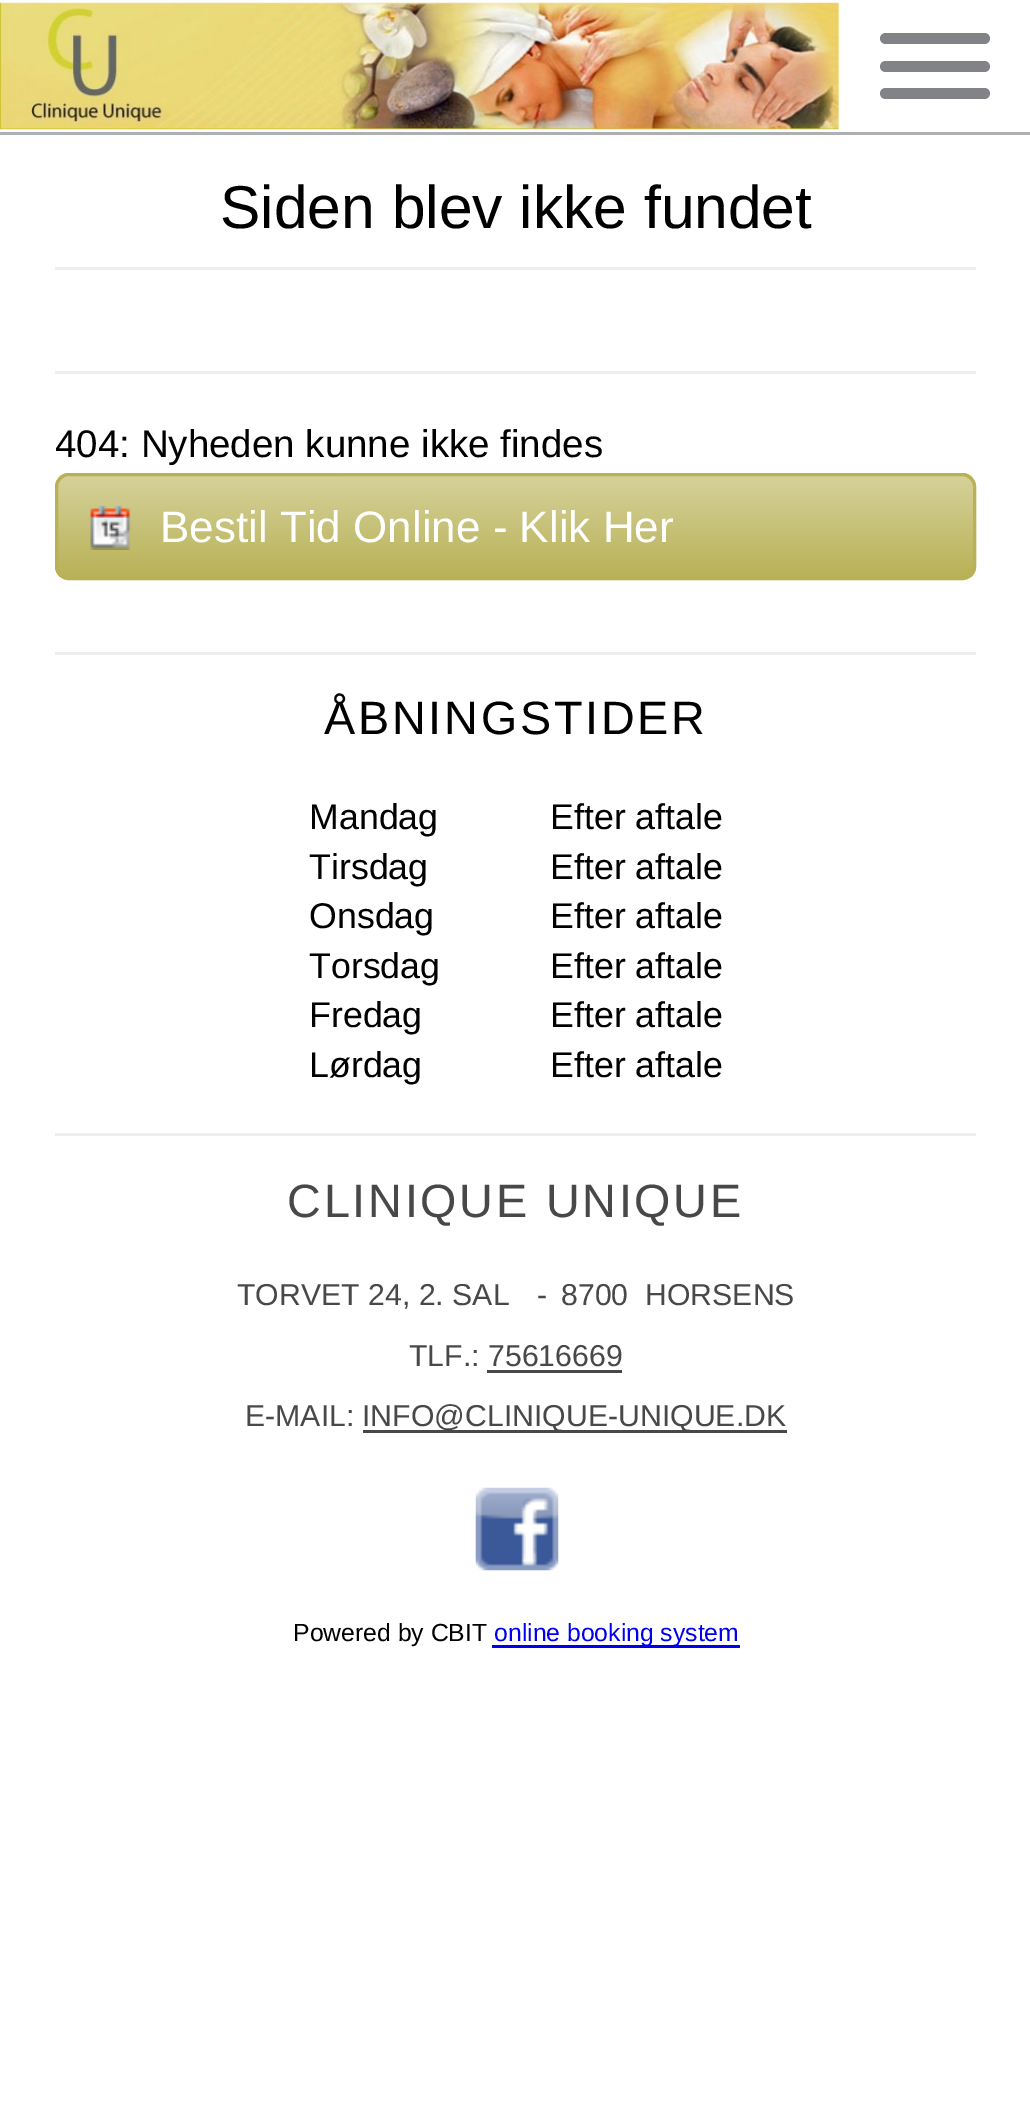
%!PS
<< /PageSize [1030 2116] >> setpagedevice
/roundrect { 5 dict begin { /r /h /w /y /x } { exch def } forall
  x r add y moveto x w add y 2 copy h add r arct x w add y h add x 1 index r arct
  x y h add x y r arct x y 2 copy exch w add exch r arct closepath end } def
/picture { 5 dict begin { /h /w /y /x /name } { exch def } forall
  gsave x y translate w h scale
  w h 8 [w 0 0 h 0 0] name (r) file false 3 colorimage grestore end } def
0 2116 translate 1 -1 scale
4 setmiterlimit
1 setgray
0 0 1030 2116 rectfill
0.682 0.686 0.698 setrgbcolor
0 132 1030 3 rectfill
(img1.rgb) 0 2 839 128 picture
0.51 0.514 0.529 setrgbcolor
880 88 110 11 5.5 roundrect fill
880 33 110 11 5.5 roundrect fill
880 61 110 11 5.5 roundrect fill
0.933 setgray
55 267 921 3 rectfill
/LiberationSans-Regular [60.5 0 0 -60.5 0 0] selectfont
0 setgray
220 228 moveto (Siden blev ikke fundet) show
0.933 setgray
55 371 921 3 rectfill
/LiberationSans-Regular [38.5 0 0 -38.5 0 0] selectfont
0 setgray
55 457 moveto (404: Nyheden kunne ikke findes) show
(img2.rgb) 55 473 922 108 picture
0.722 0.694 0.337 setrgbcolor
3 setlinewidth
56.5 474.5 918 104 12.5 roundrect stroke
/LiberationSans-Regular [44 0 0 -44 0 0] selectfont
1 setgray
160 542 moveto (Bestil Tid Online - Klik Her) show
0.933 setgray
55 652 921 3 rectfill
/LiberationSans-Regular [46.75 0 0 -46.75 0 0] selectfont
0 setgray
324 734 moveto 2.75 0 (ÅBNINGSTIDER) ashow
/LiberationSans-Regular [35.75 0 0 -35.75 0 0] selectfont
309 829 moveto (Mandag) show
550 829 moveto (Efter aftale) show
309 879 moveto (Tirsdag) show
550 879 moveto (Efter aftale) show
309 928 moveto (Onsdag) show
550 928 moveto (Efter aftale) show
309 978 moveto (Torsdag) show
550 978 moveto (Efter aftale) show
309 1027 moveto (Fredag) show
550 1027 moveto (Efter aftale) show
309 1077 moveto (Lørdag) show
550 1077 moveto (Efter aftale) show
0.933 setgray
55 1133 921 3 rectfill
/LiberationSans-Regular [46.75 0 0 -46.75 0 0] selectfont
0.282 setgray
287 1217 moveto 2.75 0 (CLINIQUE UNIQUE) ashow
/LiberationSans-Regular [30.25 0 0 -30.25 0 0] selectfont
237 1305 moveto (TORVET 24, 2. SAL) show
537 1305 moveto (-) show
561 1305 moveto (8700) show
645 1305 moveto (HORSENS) show
409 1366 moveto (TLF.: 75616669) show
487 1370 135 3 rectfill
245 1426 moveto (E-MAIL:) show
363 1430 424 3 rectfill
362 1426 moveto (INFO@CLINIQUE-UNIQUE.DK) show
(img3.rgb) 475 1487 84 84 picture
/LiberationSans-Regular [24.75 0 0 -24.75 0 0] selectfont
0 setgray
293 1641 moveto (Powered by CBIT) show
0 0 0.933 setrgbcolor
492 1645 248 3 rectfill
494 1641 moveto (online booking system) show
showpage
